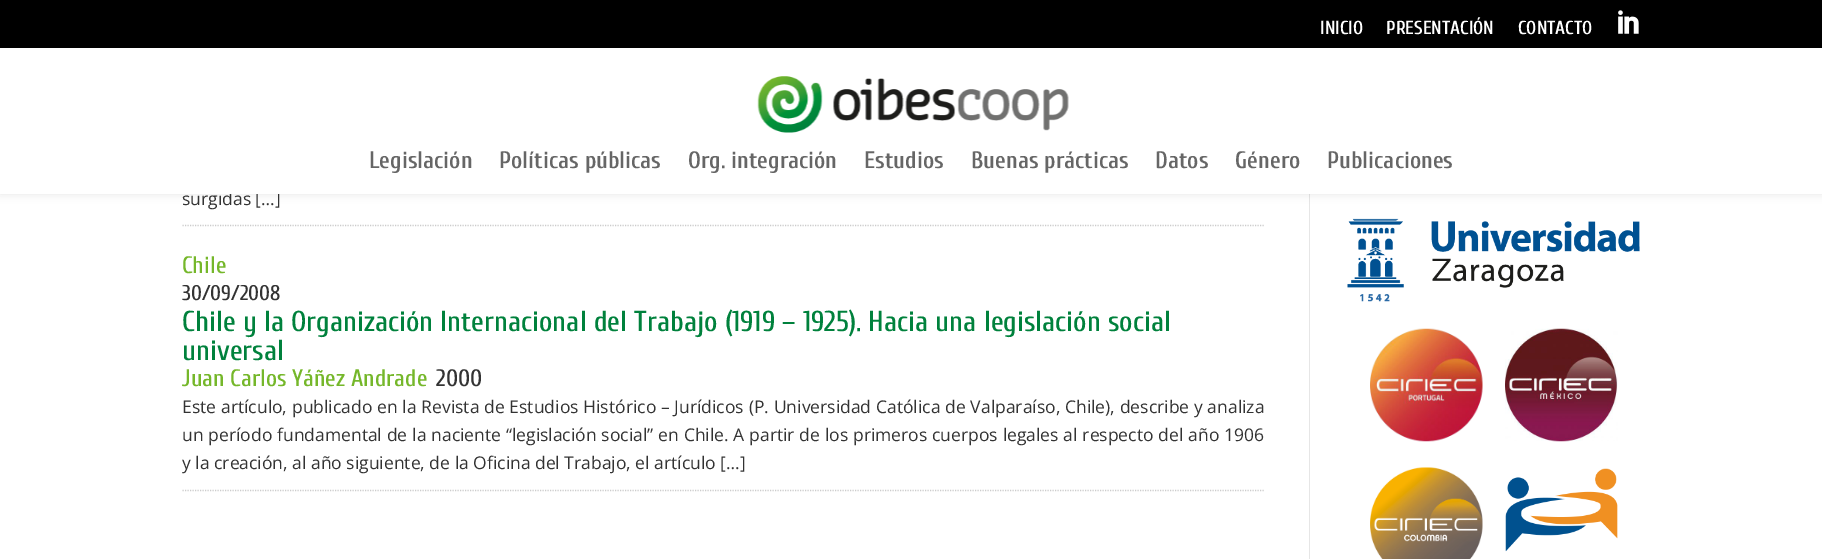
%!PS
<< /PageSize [1822 559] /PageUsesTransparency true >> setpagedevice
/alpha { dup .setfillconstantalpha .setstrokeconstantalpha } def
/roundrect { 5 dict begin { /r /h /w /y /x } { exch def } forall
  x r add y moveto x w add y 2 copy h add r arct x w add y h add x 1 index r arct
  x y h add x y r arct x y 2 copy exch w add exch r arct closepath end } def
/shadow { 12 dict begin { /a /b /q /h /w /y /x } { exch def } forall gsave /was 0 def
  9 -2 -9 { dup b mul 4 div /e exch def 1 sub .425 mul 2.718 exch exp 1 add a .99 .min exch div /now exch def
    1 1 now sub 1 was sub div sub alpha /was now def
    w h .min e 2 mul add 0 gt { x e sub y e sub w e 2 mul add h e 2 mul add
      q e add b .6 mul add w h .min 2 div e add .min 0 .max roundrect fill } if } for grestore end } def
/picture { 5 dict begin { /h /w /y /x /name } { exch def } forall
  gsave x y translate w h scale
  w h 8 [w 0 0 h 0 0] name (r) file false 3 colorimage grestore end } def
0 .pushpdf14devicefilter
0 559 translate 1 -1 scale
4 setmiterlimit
1 setgray
0 0 1822 559 rectfill
0.902 setgray
1309 194 1 365 rectfill
0 setgray
0 48 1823 146 0 4.5 0.1 shadow
0 0 1822 48 rectfill
/Cuprum-SemiBold [18.75 0 0 -18.75 0 0] selectfont
1 setgray
1320 34 moveto (INICIO) show
1386 34 moveto (PRESENTACIÓN) show
1518 34 moveto (CONTACTO) show
(img1.rgb) 1618 10 21 24 picture
/OpenSans-Regular [17.5 0 0 -17.5 0 0] selectfont
0.2 setgray
182 205 moveto (surgidas […]) show
1 setgray
0 48 1822 146 rectfill
(img2.rgb) 757 76 312 57 picture
/Cuprum-SemiBold [23.75 0 0 -23.75 0 0] selectfont
0.4 setgray
369 168 moveto (Legislación) show
499 168 moveto (Políticas públicas) show
688 168 moveto (Org. integración) show
864 168 moveto (Estudios) show
971 168 moveto (Buenas prácticas) show
1155 168 moveto (Datos) show
1235 168 moveto (Género) show
1327 168 moveto (Publicaciones) show
0.8 setgray
1.2 setlinewidth
[1.25 1.25] 0 setdash
newpath 182.5 225.5 moveto 1265 225.5 lineto stroke
newpath 182.5 490.5 moveto 1265 490.5 lineto stroke
/Cuprum-Medium [23.75 0 0 -23.75 0 0] selectfont
0.459 0.718 0.165 setrgbcolor
182 273 moveto (Chile) show
/Cuprum-Medium [21.25 0 0 -21.25 0 0] selectfont
0.2 setgray
182 300 moveto (30/09/2008) show
/Cuprum-Medium [28.75 0 0 -28.75 0 0] selectfont
0 0.506 0.235 setrgbcolor
182 331 moveto (Chile y la Organización Internacional del Trabajo \(1919 – 1925\). Hacia una legislación social) show
182 360 moveto (universal) show
/Cuprum-Medium [23.75 0 0 -23.75 0 0] selectfont
0.459 0.718 0.165 setrgbcolor
182 386 moveto (Juan Carlos Yáñez Andrade) show
0.2 setgray
436 386 moveto (2000) show
/OpenSans-Regular [17.5 0 0 -17.5 0 0] selectfont
182 413 moveto 0.25 0 32 (Este artículo, publicado en la Revista de Estudios Histórico – Jurídicos \(P. Universidad Católica de Valparaíso, Chile\), describe y analiza) widthshow
182 441 moveto 0.3 0 32 (un período fundamental de la naciente “legislación social” en Chile. A partir de los primeros cuerpos legales al respecto del año 1906) widthshow
182 469 moveto (y la creación, al año siguiente, de la Oficina del Trabajo, el artículo […]) show
(img3.rgb) 1347 218 293 84 picture
(img4.rgb) 1370 328 113 114 picture
(img5.rgb) 1505 328 113 114 picture
(img6.rgb) 1370 467 113 92 picture
(img7.rgb) 1505 468 113 84 picture
.poppdf14devicefilter showpage
